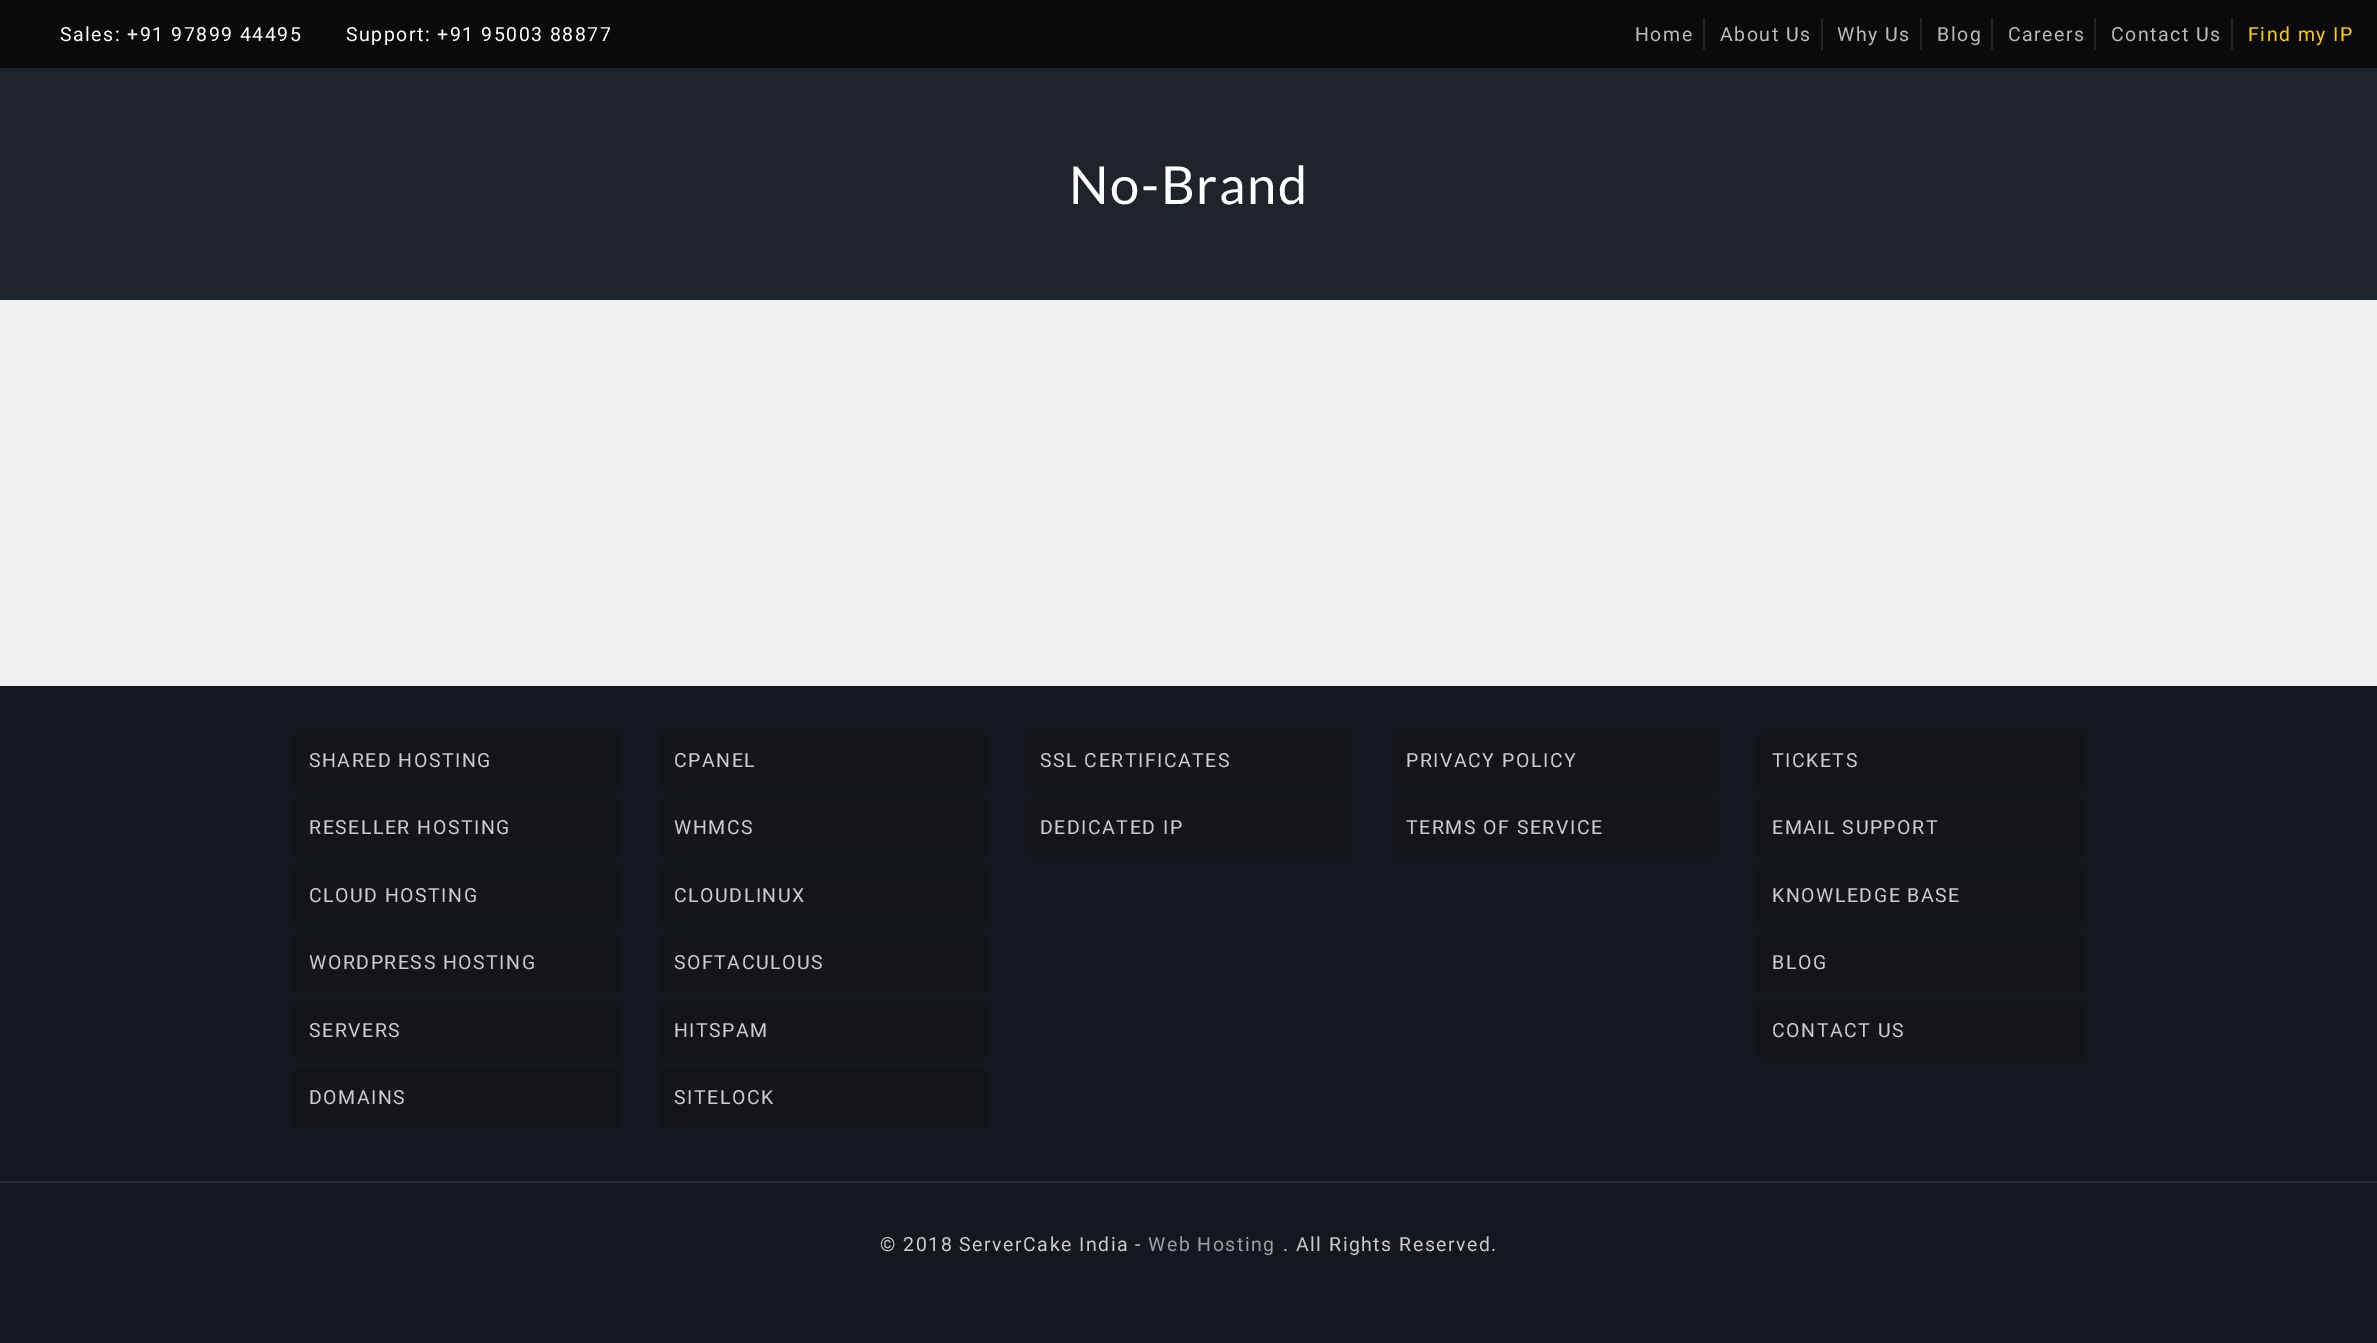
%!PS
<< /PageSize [2377 1343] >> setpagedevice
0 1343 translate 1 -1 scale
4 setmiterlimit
0.082 0.09 0.118 setrgbcolor
0 0 2377 1343 rectfill
0.122 0.137 0.165 setrgbcolor
0 68 2377 232 rectfill
0.039 setgray
0 0 2377 68 rectfill
/Roboto-Regular [19.5 0 0 -19.5 0 0] selectfont
1 setgray
60 41 moveto 1.5 0 (Sales: +91 97899 44495) ashow
346 41 moveto 1.5 0 (Support: +91 95003 88877) ashow
0.137 setgray
1703 18 2 32 rectfill
0.733 setgray
1635 41 moveto 1.5 0 (Home) ashow
0.137 setgray
1821 18 2 32 rectfill
0.733 setgray
1720 41 moveto 1.5 0 (About Us) ashow
0.137 setgray
1920 18 2 32 rectfill
0.733 setgray
1837 41 moveto 1.5 0 (Why Us) ashow
0.137 setgray
1991 18 2 32 rectfill
0.733 setgray
1937 41 moveto 1.5 0 (Blog) ashow
0.137 setgray
2094 18 2 32 rectfill
0.733 setgray
2008 41 moveto 1.5 0 (Careers) ashow
0.137 setgray
2231 18 2 32 rectfill
0.733 setgray
2111 41 moveto 1.5 0 (Contact Us) ashow
1 0.8 0 setrgbcolor
2248 41 moveto 1.5 0 (Find my IP) ashow
/Lato-Regular [52.5 0 0 -52.5 0 0] selectfont
1 setgray
1069 204 moveto 1.5 0 (No-Brand) ashow
0.941 0.941 0.949 setrgbcolor
0 300 2377 386 rectfill
0.075 0.082 0.106 setrgbcolor
293 731 328 60 rectfill
/Roboto-Regular [19.5 0 0 -19.5 0 0] selectfont
0.8 setgray
309 767 moveto 1.5 0 (SHARED HOSTING) ashow
0.075 0.082 0.106 setrgbcolor
293 798 328 60 rectfill
0.8 setgray
309 834 moveto 1.5 0 (RESELLER HOSTING) ashow
0.075 0.082 0.106 setrgbcolor
293 866 328 60 rectfill
0.8 setgray
309 902 moveto 1.5 0 (CLOUD HOSTING) ashow
0.075 0.082 0.106 setrgbcolor
293 933 328 60 rectfill
0.8 setgray
309 969 moveto 1.5 0 (WORDPRESS HOSTING) ashow
0.075 0.082 0.106 setrgbcolor
293 1001 328 60 rectfill
0.8 setgray
309 1037 moveto 1.5 0 (SERVERS) ashow
0.075 0.082 0.106 setrgbcolor
293 1068 328 60 rectfill
0.8 setgray
309 1104 moveto 1.5 0 (DOMAINS) ashow
0.075 0.082 0.106 setrgbcolor
659 731 328 60 rectfill
0.8 setgray
674 767 moveto 1.5 0 (CPANEL) ashow
0.075 0.082 0.106 setrgbcolor
659 798 328 60 rectfill
0.8 setgray
674 834 moveto 1.5 0 (WHMCS) ashow
0.075 0.082 0.106 setrgbcolor
659 866 328 60 rectfill
0.8 setgray
674 902 moveto 1.5 0 (CLOUDLINUX) ashow
0.075 0.082 0.106 setrgbcolor
659 933 328 60 rectfill
0.8 setgray
674 969 moveto 1.5 0 (SOFTACULOUS) ashow
0.075 0.082 0.106 setrgbcolor
659 1001 328 60 rectfill
0.8 setgray
674 1037 moveto 1.5 0 (HITSPAM) ashow
0.075 0.082 0.106 setrgbcolor
659 1068 328 60 rectfill
0.8 setgray
674 1104 moveto 1.5 0 (SITELOCK) ashow
0.075 0.082 0.106 setrgbcolor
1025 731 328 60 rectfill
0.8 setgray
1040 767 moveto 1.5 0 (SSL CERTIFICATES) ashow
0.075 0.082 0.106 setrgbcolor
1025 798 328 60 rectfill
0.8 setgray
1040 834 moveto 1.5 0 (DEDICATED IP) ashow
0.075 0.082 0.106 setrgbcolor
1391 731 328 60 rectfill
0.8 setgray
1406 767 moveto 1.5 0 (PRIVACY POLICY) ashow
0.075 0.082 0.106 setrgbcolor
1391 798 328 60 rectfill
0.8 setgray
1406 834 moveto 1.5 0 (TERMS OF SERVICE) ashow
0.075 0.082 0.106 setrgbcolor
1757 731 328 60 rectfill
0.8 setgray
1772 767 moveto 1.5 0 (TICKETS) ashow
0.075 0.082 0.106 setrgbcolor
1757 798 328 60 rectfill
0.8 setgray
1772 834 moveto 1.5 0 (EMAIL SUPPORT) ashow
0.075 0.082 0.106 setrgbcolor
1757 866 328 60 rectfill
0.8 setgray
1772 902 moveto 1.5 0 (KNOWLEDGE BASE) ashow
0.075 0.082 0.106 setrgbcolor
1757 933 328 60 rectfill
0.8 setgray
1772 969 moveto 1.5 0 (BLOG) ashow
0.075 0.082 0.106 setrgbcolor
1757 1001 328 60 rectfill
0.8 setgray
1772 1037 moveto 1.5 0 (CONTACT US) ashow
0.173 0.18 0.208 setrgbcolor
0 1181 2377 2 rectfill
0.8 setgray
880 1251 moveto 1.5 0 (© 2018 ServerCake India -) ashow
0.616 0.62 0.643 setrgbcolor
1148 1251 moveto 1.5 0 (Web Hosting) ashow
0.8 setgray
1283 1251 moveto 1.5 0 (. All Rights Reserved.) ashow
showpage
